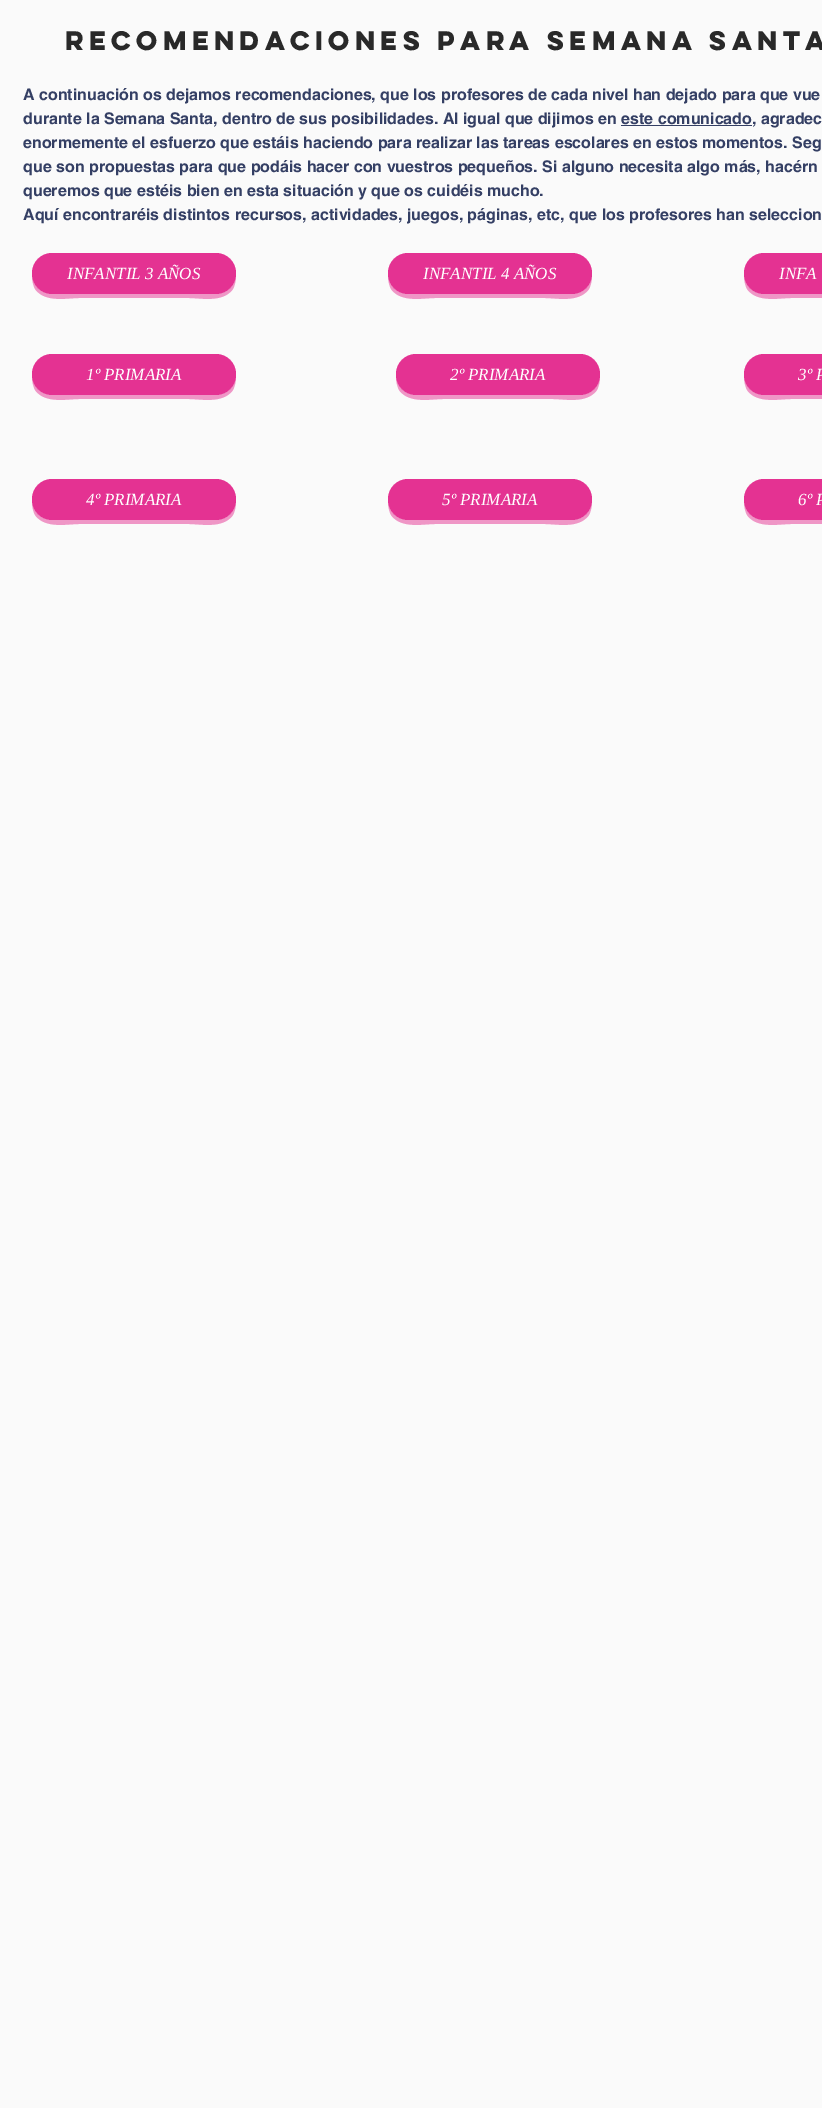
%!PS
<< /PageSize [822 2108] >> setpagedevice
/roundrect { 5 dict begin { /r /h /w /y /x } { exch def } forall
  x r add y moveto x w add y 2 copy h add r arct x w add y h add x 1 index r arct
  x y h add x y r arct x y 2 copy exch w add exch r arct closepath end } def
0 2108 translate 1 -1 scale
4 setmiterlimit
0.98 setgray
0 0 822 2108 rectfill
/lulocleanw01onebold-Bold [24 0 0 -24 0 0] selectfont
0.161 setgray
65 50 moveto (RECOMENDACIONES PARA Semana Santa) show
/helvetica-Bold [16 0 0 -16 0 0] selectfont
0.204 0.247 0.392 setrgbcolor
23 100 moveto (A continuación os dejamos recomendaciones, que los profesores de cada nivel han dejado para que vue) show
23 124 moveto (durante la Semana Santa, dentro de sus posibilidades. Al igual que dijimos en este comunicado, agradec) show
621 125 131 1 rectfill
23 148 moveto (enormemente el esfuerzo que estáis haciendo para realizar las tareas escolares en estos momentos. Seg) show
23 172 moveto (que son propuestas para que podáis hacer con vuestros pequeños. Si alguno necesita algo más, hacérn) show
23 196 moveto (queremos que estéis bien en esta situación y que os cuidéis mucho.) show
23 220 moveto (Aquí encontraréis distintos recursos, actividades, juegos, páginas, etc, que los profesores han seleccion) show
0.937 0.588 0.776 setrgbcolor
newpath 32 276 moveto 32 280 33 285 35 289 curveto 45 303 67 298 79 298 curveto 189 298 lineto 201 298 223 303 233 289 curveto 235 285 236 280 236 276 curveto 235 286 227 294 216 294 curveto 52 294 lineto 41 294 33 286 32 276 curveto closepath fill
0.894 0.196 0.573 setrgbcolor
32 253 204 41 20 roundrect fill
/LiberationSerif-Italic [17 0 0 -17 0 0] selectfont
1 setgray
67 279 moveto (INFANTIL 3 AÑOS) show
0.937 0.588 0.776 setrgbcolor
newpath 388 276 moveto 388 280 389 285 391 289 curveto 401 303 423 298 435 298 curveto 545 298 lineto 557 298 579 303 589 289 curveto 591 285 592 280 592 276 curveto 591 286 583 294 572 294 curveto 408 294 lineto 397 294 389 286 388 276 curveto closepath fill
0.894 0.196 0.573 setrgbcolor
388 253 204 41 20 roundrect fill
1 setgray
423 279 moveto (INFANTIL 4 AÑOS) show
0.937 0.588 0.776 setrgbcolor
newpath 744 276 moveto 744 280 745 285 747 289 curveto 757 303 779 298 791 298 curveto 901 298 lineto 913 298 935 303 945 289 curveto 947 285 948 280 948 276 curveto 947 286 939 294 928 294 curveto 764 294 lineto 753 294 745 286 744 276 curveto closepath fill
0.894 0.196 0.573 setrgbcolor
744 253 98 41 20 roundrect fill
1 setgray
779 279 moveto (INFA) show
0.937 0.588 0.776 setrgbcolor
newpath 32 376 moveto 32 381 33 386 35 390 curveto 45 404 67 399 79 399 curveto 189 399 lineto 201 399 223 404 233 390 curveto 235 386 236 381 236 376 curveto 235 387 227 395 216 395 curveto 52 395 lineto 41 395 33 387 32 376 curveto closepath fill
0.894 0.196 0.573 setrgbcolor
32 354 204 41 20 roundrect fill
1 setgray
86 380 moveto (1º PRIMARIA) show
0.937 0.588 0.776 setrgbcolor
newpath 396 376 moveto 396 381 397 386 399 390 curveto 409 404 431 399 443 399 curveto 553 399 lineto 565 399 587 404 597 390 curveto 599 386 600 381 600 376 curveto 599 387 591 395 580 395 curveto 416 395 lineto 405 395 397 387 396 376 curveto closepath fill
0.894 0.196 0.573 setrgbcolor
396 354 204 41 20 roundrect fill
1 setgray
450 380 moveto (2º PRIMARIA) show
0.937 0.588 0.776 setrgbcolor
newpath 744 376 moveto 744 381 745 386 747 390 curveto 757 404 779 399 791 399 curveto 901 399 lineto 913 399 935 404 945 390 curveto 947 386 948 381 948 376 curveto 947 387 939 395 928 395 curveto 764 395 lineto 753 395 745 387 744 376 curveto closepath fill
0.894 0.196 0.573 setrgbcolor
744 354 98 41 20 roundrect fill
1 setgray
798 380 moveto (3º P) show
0.937 0.588 0.776 setrgbcolor
newpath 32 502 moveto 32 506 33 511 35 515 curveto 45 529 67 524 79 524 curveto 189 524 lineto 201 524 223 529 233 515 curveto 235 511 236 506 236 502 curveto 235 512 227 520 216 520 curveto 52 520 lineto 41 520 33 512 32 502 curveto closepath fill
0.894 0.196 0.573 setrgbcolor
32 479 204 41 20 roundrect fill
1 setgray
86 505 moveto (4º PRIMARIA) show
0.937 0.588 0.776 setrgbcolor
newpath 388 502 moveto 388 506 389 511 391 515 curveto 401 529 423 524 435 524 curveto 545 524 lineto 557 524 579 529 589 515 curveto 591 511 592 506 592 502 curveto 591 512 583 520 572 520 curveto 408 520 lineto 397 520 389 512 388 502 curveto closepath fill
0.894 0.196 0.573 setrgbcolor
388 479 204 41 20 roundrect fill
1 setgray
442 505 moveto (5º PRIMARIA) show
0.937 0.588 0.776 setrgbcolor
newpath 744 502 moveto 744 506 745 511 747 515 curveto 757 529 779 524 791 524 curveto 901 524 lineto 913 524 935 529 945 515 curveto 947 511 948 506 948 502 curveto 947 512 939 520 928 520 curveto 764 520 lineto 753 520 745 512 744 502 curveto closepath fill
0.894 0.196 0.573 setrgbcolor
744 479 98 41 20 roundrect fill
1 setgray
798 505 moveto (6º P) show
showpage
